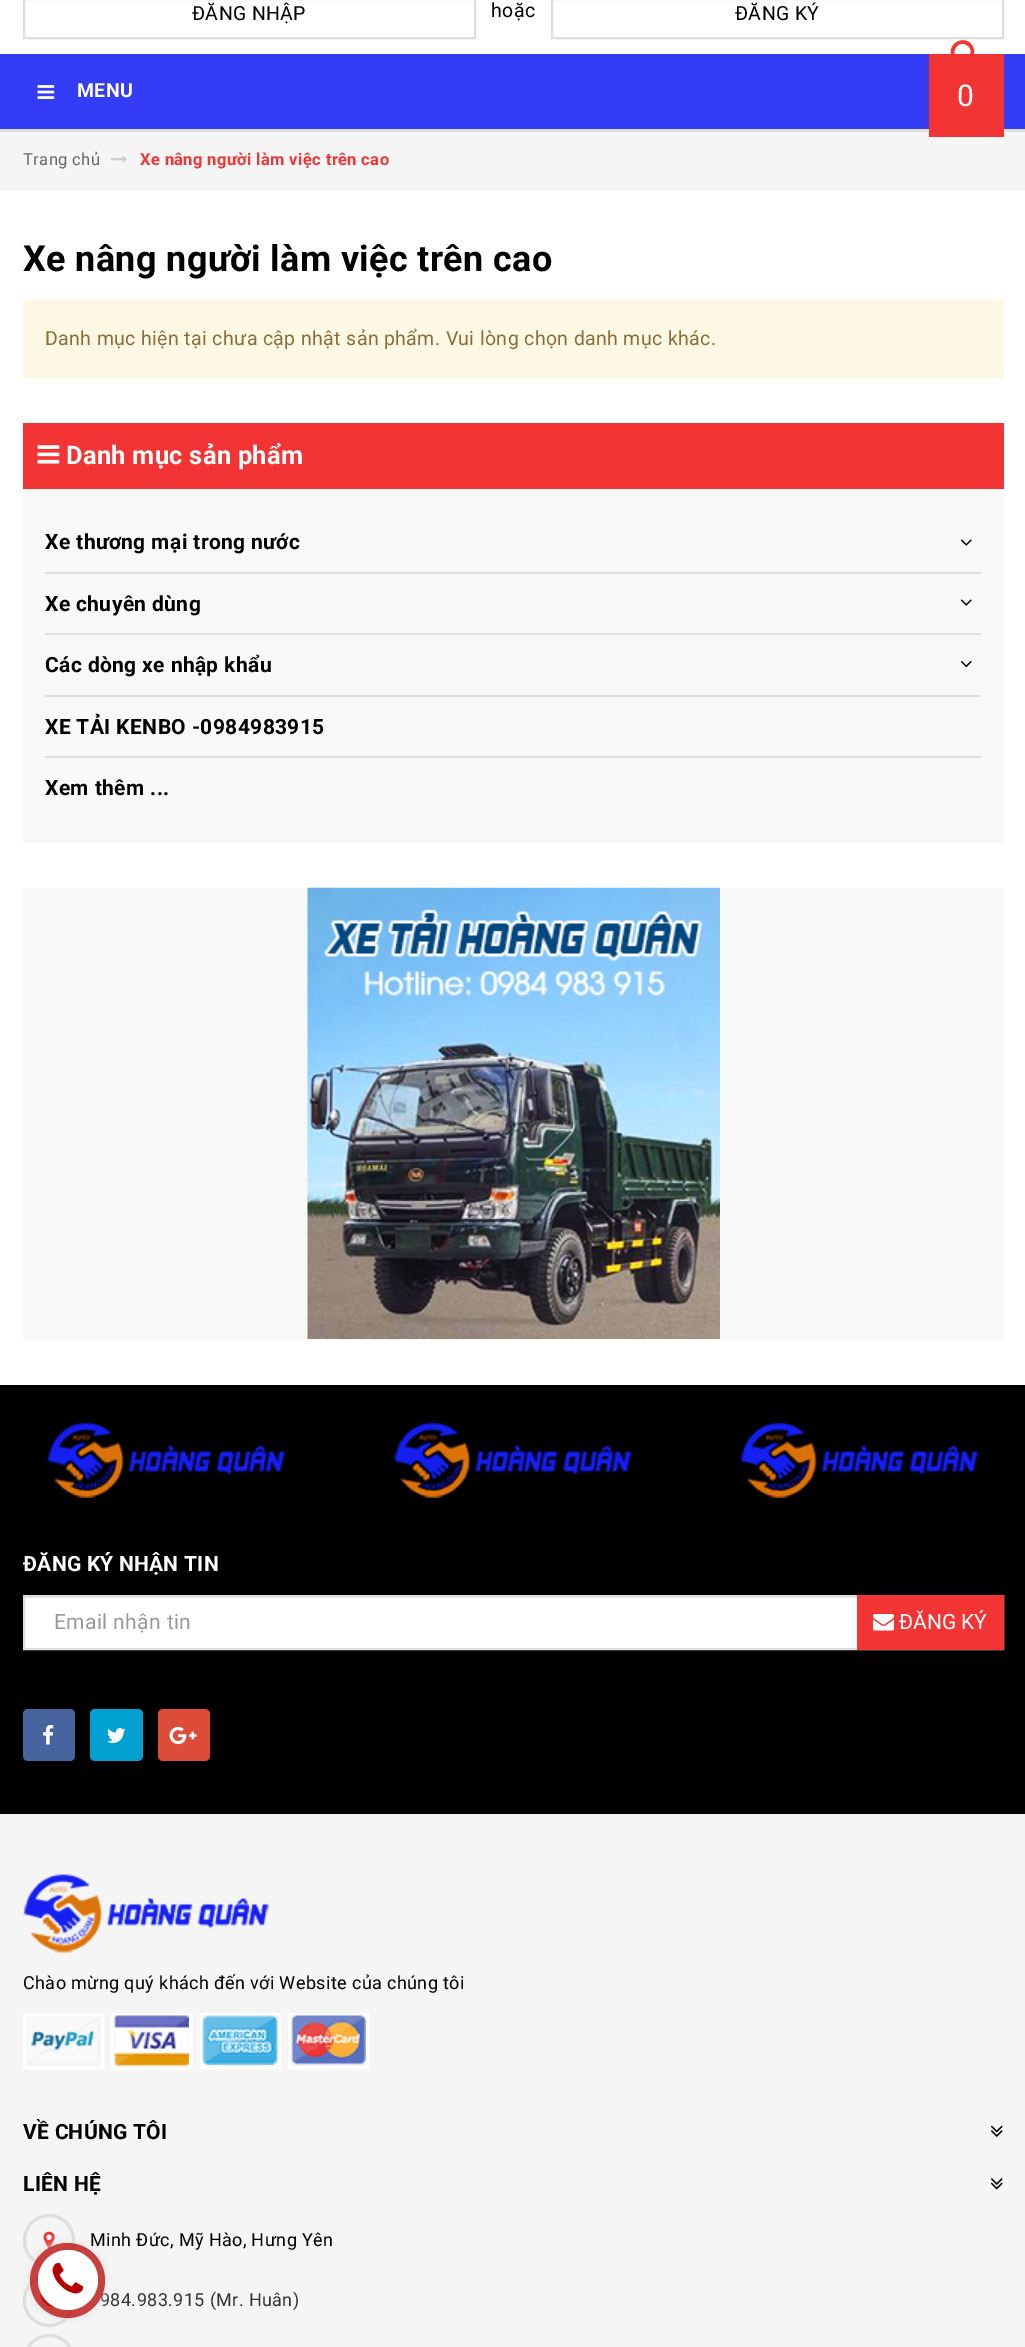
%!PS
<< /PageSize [1025 2347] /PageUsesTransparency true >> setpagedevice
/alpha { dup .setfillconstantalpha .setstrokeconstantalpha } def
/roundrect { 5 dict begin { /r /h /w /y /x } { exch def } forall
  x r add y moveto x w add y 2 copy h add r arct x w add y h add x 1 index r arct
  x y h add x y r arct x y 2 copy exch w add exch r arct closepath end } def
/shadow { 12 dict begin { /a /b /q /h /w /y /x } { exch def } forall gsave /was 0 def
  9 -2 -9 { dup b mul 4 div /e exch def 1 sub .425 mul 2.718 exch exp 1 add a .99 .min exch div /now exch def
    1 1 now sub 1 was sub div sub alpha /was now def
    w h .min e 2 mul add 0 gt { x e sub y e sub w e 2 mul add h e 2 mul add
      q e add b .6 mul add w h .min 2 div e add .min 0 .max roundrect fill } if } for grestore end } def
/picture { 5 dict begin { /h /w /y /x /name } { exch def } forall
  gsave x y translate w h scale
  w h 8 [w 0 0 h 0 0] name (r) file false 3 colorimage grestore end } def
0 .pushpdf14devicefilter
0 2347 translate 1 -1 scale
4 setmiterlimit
1 setgray
0 0 1025 2347 rectfill
0.871 setgray
2 setlinewidth
24 -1 451 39 rectstroke
/Roboto-Regular [19.5 0 0 -19.5 0 0] selectfont
0 setgray
192 20 moveto 0.38 0 (ĐĂNG NHẬP) ashow
491 17 moveto 0.38 0 (hoặc) ashow
0.871 setgray
552 -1 451 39 rectstroke
0 setgray
735 20 moveto 0.38 0 (ĐĂNG KÝ) ashow
0.871 setgray
0 129 1025 3 rectfill
0.204 0.239 0.961 setrgbcolor
0 54 1025 75 rectfill
(img1.rgb) 37 85 18 14 picture
/Roboto-Bold [19.5 0 0 -19.5 0 0] selectfont
1 setgray
77 97 moveto 0.38 0 (MENU) ashow
0.961 setgray
0 132 1025 59 rectfill
0.949 0.208 0.204 setrgbcolor
929 54 75 83 rectfill
newpath 966.5 45 moveto 957.5 39.5 949 53.5 958.5 59 curveto 967.5 64.5 976 50 966.5 45 curveto closepath 972.5 46 moveto 980 59 960 71 952.5 57.5 curveto 945 44.5 965 33 972.5 46 curveto closepath fill
/Roboto-Regular [30 0 0 -30 0 0] selectfont
1 setgray
957 106 moveto 0.38 0 (0) ashow
/Roboto-Regular [16.5 0 0 -16.5 0 0] selectfont
0.4 setgray
23 165 moveto 0.38 0 (Trang chủ) ashow
(img2.rgb) 111 155 16 8 picture
/Roboto-Bold [16.5 0 0 -16.5 0 0] selectfont
0.949 0.208 0.204 setrgbcolor
140 165 moveto 0.38 0 (Xe nâng người làm việc trên cao) ashow
/Roboto-Bold [36 0 0 -36 0 0] selectfont
0 setgray
23 271 moveto 0.35 0 (Xe nâng người làm việc trên cao) ashow
0.988 0.973 0.89 setrgbcolor
23 300 981 78 rectfill
/Roboto-Regular [19.5 0 0 -19.5 0 0] selectfont
0.541 0.427 0.231 setrgbcolor
45 345 moveto 0.38 0 (Danh mục hiện tại chưa cập nhật sản phẩm. Vui lòng chọn danh mục khác.) ashow
0.949 0.208 0.204 setrgbcolor
23 423 981 66 rectfill
(img3.rgb) 37 445 23 19 picture
/Roboto-Bold [25.5 0 0 -25.5 0 0] selectfont
1 setgray
66 464 moveto 0.25 0 (Danh mục sản phẩm) ashow
0.973 setgray
23 489 981 354 rectfill
/Roboto-Bold [21 0 0 -21 0 0] selectfont
0 setgray
45 549 moveto 0.38 0 (Xe thương mại trong nước) ashow
(img4.rgb) 960 539 12 7 picture
0.871 setgray
45 572 936 2 rectfill
0 setgray
45 611 moveto 0.38 0 (Xe chuyên dùng) ashow
(img4.rgb) 960 599 12 7 picture
0.871 setgray
45 633 936 2 rectfill
0 setgray
45 672 moveto 0.38 0 (Các dòng xe nhập khẩu) ashow
(img5.rgb) 960 660 12 8 picture
0.871 setgray
45 695 936 2 rectfill
0 setgray
45 734 moveto 0.38 0 (XE TẢI KENBO -0984983915) ashow
0.871 setgray
45 756 936 2 rectfill
0 setgray
45 795 moveto 0.38 0 (Xem thêm ...) ashow
0.973 setgray
23 888 981 452 rectfill
(img6.rgb) 307 887 413 452 picture
0.961 setgray
0 1814 1025 533 rectfill
0 setgray
0 1385 1025 429 rectfill
(img7.rgb) 47 1422 239 76 picture
(img8.rgb) 394 1422 238 76 picture
(img7.rgb) 740 1422 239 76 picture
1 setgray
23 1571 moveto 0.25 0 (ĐĂNG KÝ NHẬN TIN) ashow
25 1598 832 50 rectfill
0.925 setgray
24 1597 833 1 rectfill
0.871 setgray
24 1596 979 53 rectstroke
/Roboto-Regular [21 0 0 -21 0 0] selectfont
0.6 setgray
54 1629 moveto 0.38 0 (Email nhận tin) ashow
0.949 0.208 0.204 setrgbcolor
857 1595 147 55 rectfill
(img9.rgb) 873 1614 21 17 picture
1 setgray
899 1629 moveto (ĐĂNG KÝ) show
0.278 0.392 0.62 setrgbcolor
23 1709 52 52 5 roundrect fill
(img10.rgb) 43 1725 11 20 picture
0 0.627 0.82 setrgbcolor
90 1709 53 52 5 roundrect fill
(img11.rgb) 107 1728 19 15 picture
0.867 0.294 0.224 setrgbcolor
158 1709 52 52 5 roundrect fill
(img12.rgb) 169 1726 28 19 picture
(img13.rgb) 23 1874 246 79 picture
/Roboto-Regular [18 0 0 -18 0 0] selectfont
0 setgray
23 1989 moveto 0.38 0 (Chào mừng quý khách đến với Website của chúng tôi) ashow
1 setgray
3 setlinewidth
24.5 2014.5 78 53 rectstroke
(img14.rgb) 26 2016 71 46 picture
112.5 2014.5 78 54 rectstroke
(img15.rgb) 114 2015 75 52 picture
201.5 2014.5 78 53 rectstroke
(img16.rgb) 202 2015 76 50 picture
289.5 2014.5 78 53 rectstroke
(img17.rgb) 291 2015 75 50 picture
/Roboto-Bold [21 0 0 -21 0 0] selectfont
0 setgray
23 2139 moveto 0.25 0 (VỀ CHÚNG TÔI) ashow
(img18.rgb) 990 2125 13 12 picture
23 2191 moveto 0.25 0 (LIÊN HỆ) ashow
(img19.rgb) 990 2178 13 12 picture
0.871 setgray
24.5 2215.5 49 50 24.5 roundrect stroke
(img20.rgb) 43 2231 12 18 picture
/Roboto-Regular [18 0 0 -18 0 0] selectfont
0 setgray
90 2246 moveto 0.38 0 (Minh Đức, Mỹ Hào, Hưng Yên) ashow
0.871 setgray
24.5 2275.5 49 50 24.5 roundrect stroke
(img21.rgb) 40 2293 15 14 picture
0.2 setgray
100 2306 moveto 0.38 0 (984.983.915 \(Mr. Huân\)) ashow
0.871 setgray
24.5 2335.5 49 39 24.5 roundrect stroke
gsave
newpath 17 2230 moveto 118 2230 lineto 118 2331 lineto 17 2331 lineto closepath 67.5 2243 moveto 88 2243 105 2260 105 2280.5 curveto 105 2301 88 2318 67.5 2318 curveto 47 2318 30 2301 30 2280.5 curveto 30 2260 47 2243 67.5 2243 curveto closepath eoclip newpath
0.867 setgray
30 2243 75 75 37.5 4 1 shadow
grestore
0.74 alpha
0.718 0.004 0 setrgbcolor
newpath 67.5 2280.5 37.5 0 360 arc closepath fill
1 alpha
1 setgray
newpath 68 2280 30 0 360 arc closepath fill
(img22.rgb) 52 2262 32 32 picture
.poppdf14devicefilter showpage
